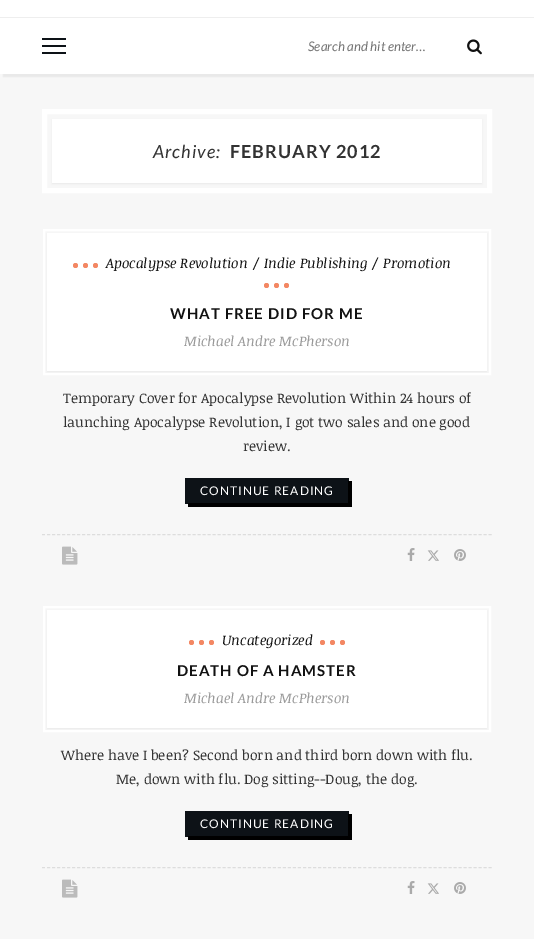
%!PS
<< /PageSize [534 939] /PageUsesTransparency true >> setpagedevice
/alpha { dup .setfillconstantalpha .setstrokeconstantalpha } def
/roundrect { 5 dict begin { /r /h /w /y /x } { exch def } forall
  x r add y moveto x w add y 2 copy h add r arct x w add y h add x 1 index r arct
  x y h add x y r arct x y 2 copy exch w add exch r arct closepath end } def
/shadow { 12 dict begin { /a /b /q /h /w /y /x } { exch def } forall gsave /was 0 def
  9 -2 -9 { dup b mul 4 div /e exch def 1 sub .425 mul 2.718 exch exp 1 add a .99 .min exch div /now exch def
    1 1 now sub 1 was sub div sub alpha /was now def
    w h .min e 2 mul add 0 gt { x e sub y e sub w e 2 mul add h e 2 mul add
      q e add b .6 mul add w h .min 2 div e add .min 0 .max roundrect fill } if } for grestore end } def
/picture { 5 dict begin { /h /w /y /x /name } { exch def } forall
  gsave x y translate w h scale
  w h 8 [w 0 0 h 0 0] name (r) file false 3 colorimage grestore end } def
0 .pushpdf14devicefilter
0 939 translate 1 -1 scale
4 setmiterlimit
0.969 setgray
0 0 534 939 rectfill
1 setgray
0 0 534 17 rectfill
0.933 setgray
0 17 534 1 rectfill
0 setgray
3 21 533 56 0 0.5 0.05 shadow
1 setgray
0 18 534 56 rectfill
0.051 0.071 0.09 setrgbcolor
42 45 24 2 rectfill
42 38 24 2 rectfill
42 52 24 2 rectfill
/Lato-Italic [13.25 0 0 -13.25 0 0] selectfont
0.459 setgray
308 51 moveto (Search and hit enter…) show
(img1.rgb) 467 39 15 16 picture
0 setgray
52 120 430 64 0 1 0.05 shadow
1 setgray
52 119 430 64 rectfill
5 setlinewidth
44.5 111.5 445 79 rectstroke
/Lato-Italic [18 0 0 -18 0 0] selectfont
0.2 setgray
153 158 moveto 1 0 (Archive:) ashow
/Lato-Bold [18 0 0 -18 0 0] selectfont
230 158 moveto 1 0 (FEBRUARY 2012) ashow
0 setgray
47 234 440 138 0 1 0.05 shadow
1 setgray
47 233 440 138 rectfill
0.953 0.529 0.388 setrgbcolor
newpath 85.5 265.5 2.5 0 360 arc closepath fill
newpath 75.5 265.5 2.5 0 360 arc closepath fill
newpath 95.5 265.5 2.5 0 360 arc closepath fill
newpath 276.5 285.5 2.5 0 360 arc closepath fill
newpath 266.5 285.5 2.5 0 360 arc closepath fill
newpath 286.5 285.5 2.5 0 360 arc closepath fill
1 setgray
2 setlinewidth
44 230 446 144 rectstroke
/NoticiaText-Italic [14 0 0 -14 0 0] selectfont
0.067 setgray
106 268 moveto (Apocalypse Revolution) show
253 268 moveto (/) show
264 268 moveto (Indie Publishing) show
372 268 moveto (/) show
383 268 moveto (Promotion) show
/Lato-Bold [15 0 0 -15 0 0] selectfont
170 319 moveto 1 0 (WHAT FREE DID FOR ME) ashow
/NoticiaText-Italic [14 0 0 -14 0 0] selectfont
0.6 setgray
184 346 moveto (Michael Andre McPherson) show
/NoticiaText-Regular [14 0 0 -14 0 0] selectfont
0.2 setgray
63 403 moveto (Temporary Cover for Apocalypse Revolution Within 24 hours of) show
63 427 moveto (launching Apocalypse Revolution, I got two sales and one good) show
243 451 moveto (review.) show
0.051 0.071 0.09 setrgbcolor
185 478 164 26 rectfill
0 setgray
348 481 4 26 rectfill
188 503 164 4 rectfill
/Lato-Regular [12 0 0 -12 0 0] selectfont
1 setgray
200 495 moveto 1 0 (CONTINUE READING) ashow
0.867 setgray
1 setlinewidth
[3 2.02] 0 setdash
newpath 42 534.5 moveto 492 534.5 lineto stroke
(img2.rgb) 62 546 16 19 picture
(img3.rgb) 407 548 8 13 picture
(img4.rgb) 427 550 12 11 picture
(img5.rgb) 454 549 12 12 picture
0 setgray
47 611 440 118 0 1 0.05 shadow
1 setgray
47 610 440 118 rectfill
0.953 0.529 0.388 setrgbcolor
newpath 201.5 642.5 2.5 0 360 arc closepath fill
newpath 191.5 642.5 2.5 0 360 arc closepath fill
newpath 211.5 642.5 2.5 0 360 arc closepath fill
newpath 332.5 642.5 2.5 0 360 arc closepath fill
newpath 322.5 642.5 2.5 0 360 arc closepath fill
newpath 342.5 642.5 2.5 0 360 arc closepath fill
1 setgray
2 setlinewidth
[] 0 setdash
44 607 446 124 rectstroke
/NoticiaText-Italic [14 0 0 -14 0 0] selectfont
0.067 setgray
222 645 moveto (Uncategorized) show
/Lato-Bold [15 0 0 -15 0 0] selectfont
177 676 moveto 1 0 (DEATH OF A HAMSTER) ashow
/NoticiaText-Italic [14 0 0 -14 0 0] selectfont
0.6 setgray
184 703 moveto (Michael Andre McPherson) show
/NoticiaText-Regular [14 0 0 -14 0 0] selectfont
0.2 setgray
61 760 moveto (Where have I been? Second born and third born down with flu.) show
116 784 moveto (Me, down with flu. Dog sitting--Doug, the dog.) show
0.051 0.071 0.09 setrgbcolor
185 811 164 26 rectfill
0 setgray
348 814 4 26 rectfill
188 836 164 4 rectfill
/Lato-Regular [12 0 0 -12 0 0] selectfont
1 setgray
200 828 moveto 1 0 (CONTINUE READING) ashow
0.867 setgray
1 setlinewidth
[3 2.02] 0 setdash
newpath 42 867.5 moveto 492 867.5 lineto stroke
(img2.rgb) 62 879 16 19 picture
(img3.rgb) 407 881 8 13 picture
(img4.rgb) 427 883 12 11 picture
(img5.rgb) 454 882 12 12 picture
.poppdf14devicefilter showpage
